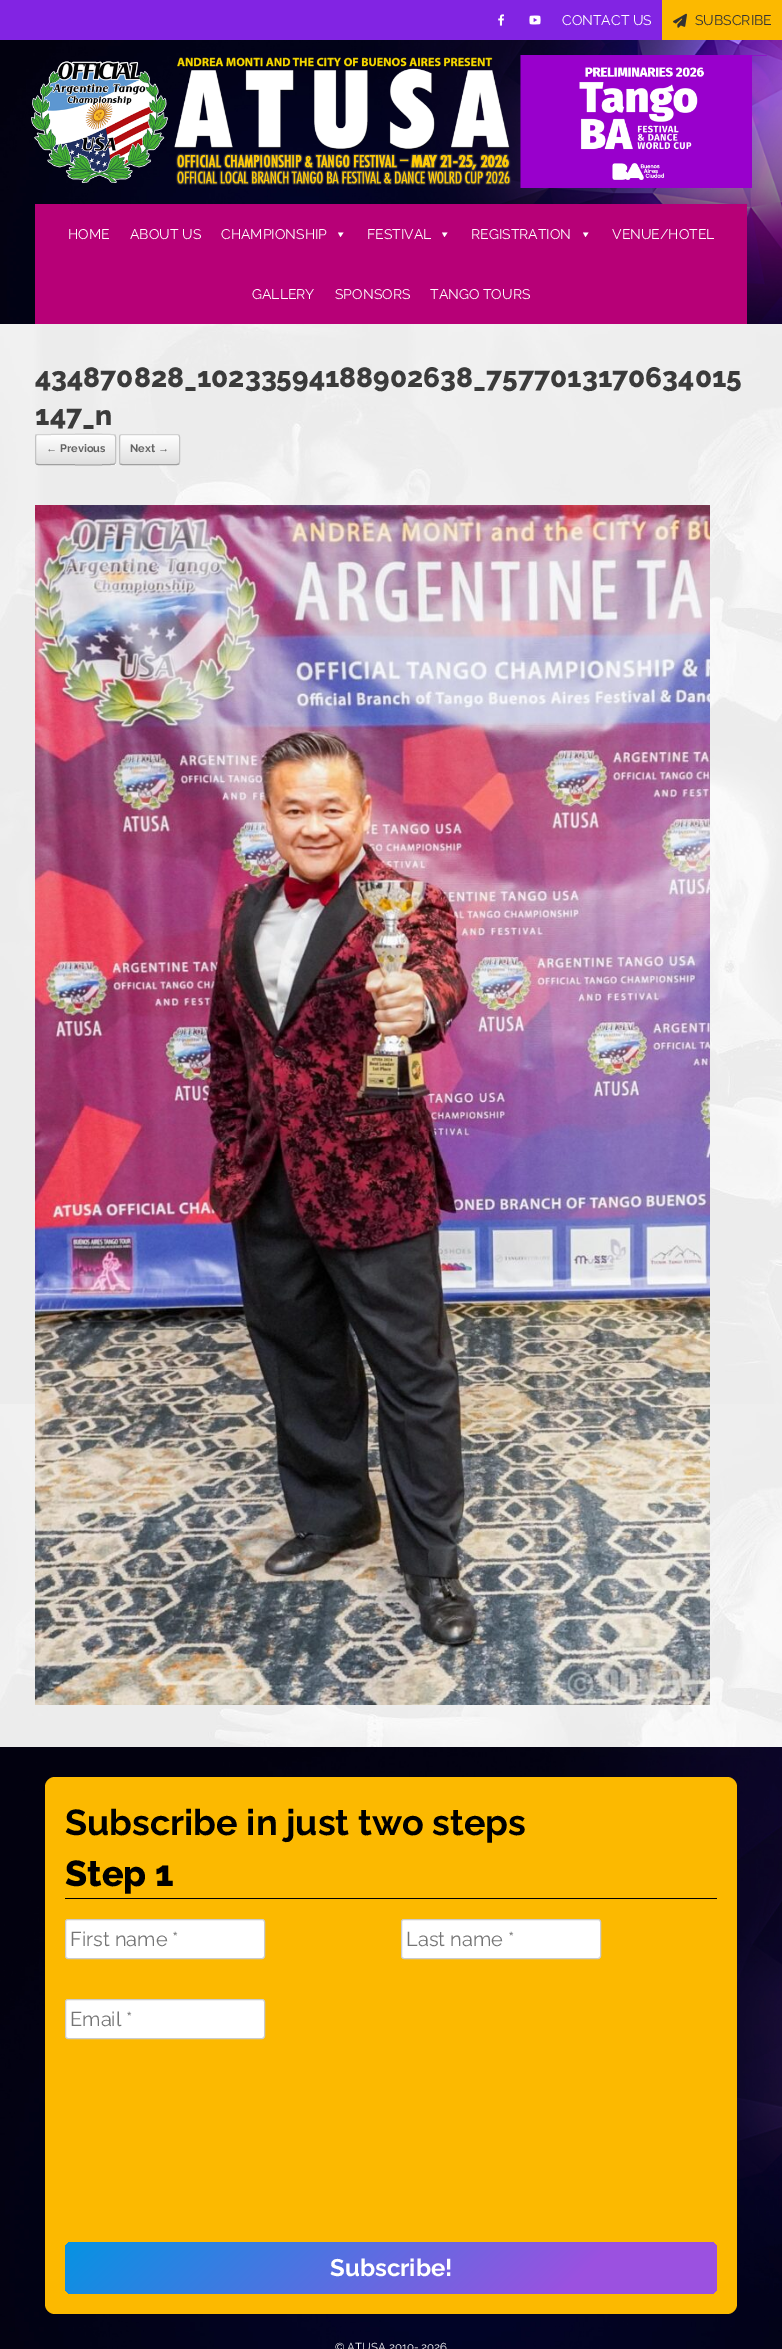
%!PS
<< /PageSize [782 2349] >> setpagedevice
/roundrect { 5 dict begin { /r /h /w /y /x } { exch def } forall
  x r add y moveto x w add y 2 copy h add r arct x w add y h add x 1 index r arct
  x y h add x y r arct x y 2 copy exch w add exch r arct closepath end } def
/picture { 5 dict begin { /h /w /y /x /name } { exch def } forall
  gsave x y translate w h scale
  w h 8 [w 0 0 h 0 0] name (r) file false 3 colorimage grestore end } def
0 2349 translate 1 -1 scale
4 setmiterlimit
1 setgray
0 0 782 2349 rectfill
(img1.rgb) 0 40 782 284 picture
0.51 0.141 0.89 setrgbcolor
0 0 662 40 rectfill
(img2.rgb) 498 14 6 12 picture
(img3.rgb) 529 15 12 10 picture
/Raleway-Regular [14 0 0 -14 0 0] selectfont
1 setgray
562 25 moveto (CONTACT US) show
0.988 0.725 0 setrgbcolor
662 0 120 40 rectfill
(img4.rgb) 673 13 14 15 picture
0.2 setgray
695 25 moveto (SUBSCRIBE) show
(img5.rgb) 31 55 736 133 picture
0.718 0 0.467 setrgbcolor
35 204 712 120 rectfill
1 setgray
68 239 moveto (HOME) show
130 239 moveto (ABOUT US) show
221 239 moveto (CHAMPIONSHIP) show
newpath 343.5 232.5 moveto 340.5 237 lineto 338 232.5 lineto closepath fill
367 239 moveto (FESTIVAL) show
newpath 447.5 232.5 moveto 444.5 237 lineto 442 232.5 lineto closepath fill
471 239 moveto (REGISTRATION) show
newpath 588.5 232.5 moveto 585.5 237 lineto 583 232.5 lineto closepath fill
612 239 moveto (VENUE/HOTEL) show
252 299 moveto (GALLERY) show
335 299 moveto (SPONSORS) show
430 299 moveto (TANGO TOURS) show
(img6.rgb) 0 324 782 1423 picture
/Raleway-ExtraBold [28 0 0 -28 0 0] selectfont
0.231 setgray
35 387 moveto (434870828_10233594188902638_7577013170634015) show
35 425 moveto (147_n) show
gsave
35 434 81 31 3 roundrect clip newpath
gsave newpath 35 434 moveto 116 434 lineto 116 435 lineto 35 435 lineto closepath clip newpath
<< /ShadingType 2 /ColorSpace /DeviceRGB /Coords [36 435 36 406] /Extend [true true] /Function << /FunctionType 2 /Domain [0 1] /C0 [0.875 0.875 0.875] /C1 [1 1 1] /N 1 >> >> shfill grestore
gsave newpath 35 435 moveto 116 435 lineto 116 464 lineto 35 464 lineto closepath clip newpath
<< /ShadingType 2 /ColorSpace /DeviceRGB /Coords [36 464 36 435] /Extend [true true] /Function << /FunctionType 2 /Domain [0 1] /C0 [0.875 0.875 0.875] /C1 [1 1 1] /N 1 >> >> shfill grestore
gsave newpath 35 464 moveto 116 464 lineto 116 465 lineto 35 465 lineto closepath clip newpath
<< /ShadingType 2 /ColorSpace /DeviceRGB /Coords [36 493 36 464] /Extend [true true] /Function << /FunctionType 2 /Domain [0 1] /C0 [0.875 0.875 0.875] /C1 [1 1 1] /N 1 >> >> shfill grestore
grestore
0.824 setgray
newpath 36 435 moveto 38 434.5 lineto 50.5 434.5 lineto 57.5 434.5 112.5 433.5 114.5 435 curveto 115 435 lineto stroke
0.765 setgray
newpath 115 435 moveto 115 435.5 115.5 436.5 115.5 437 curveto 115.5 462 lineto 115.5 462.5 115 463.5 115 464 curveto stroke
0.624 setgray
newpath 115 464 moveto 114.5 464 lineto 112.5 465.5 57.5 464.5 50.5 464.5 curveto 38 464.5 lineto 36 464 lineto stroke
0.765 setgray
newpath 36 464 moveto 36 463.5 35.5 462.5 35.5 462 curveto 35.5 437 lineto 35.5 436.5 36 435.5 36 435 curveto stroke
/LiberationSerif-Bold [11 0 0 -11 0 0] selectfont
0.392 setgray
46 452 moveto (←) show
/Raleway-Bold [11 0 0 -11 0 0] selectfont
60 452 moveto (Previous) show
gsave
119 434 61 31 3 roundrect clip newpath
gsave newpath 119 435 moveto 180 435 lineto 180 464 lineto 119 464 lineto closepath clip newpath
<< /ShadingType 2 /ColorSpace /DeviceRGB /Coords [120 464 120 435] /Extend [true true] /Function << /FunctionType 2 /Domain [0 1] /C0 [0.875 0.875 0.875] /C1 [1 1 1] /N 1 >> >> shfill grestore
grestore
0.824 setgray
newpath 120 435 moveto 122 434.5 lineto 177 434.5 lineto 179 435 lineto stroke
0.765 setgray
newpath 179 435 moveto 179 435.5 179.5 436.5 179.5 437 curveto 179.5 462 lineto 179.5 462.5 179 463.5 179 464 curveto stroke
0.624 setgray
newpath 179 464 moveto 177 464.5 lineto 122 464.5 lineto 120 464 lineto stroke
0.765 setgray
newpath 120 464 moveto 120 463.5 119.5 462.5 119.5 462 curveto 119.5 437 lineto 119.5 436.5 120 435.5 120 435 curveto stroke
0.392 setgray
130 452 moveto (Next) show
/LiberationSerif-Bold [11 0 0 -11 0 0] selectfont
158 452 moveto (→) show
(img7.rgb) 35 505 675 1200 picture
(img8.rgb) 0 1747 782 602 picture
0.988 0.725 0 setrgbcolor
45 1777 692 537 10 roundrect fill
/Raleway-Bold [36 0 0 -36 0 0] selectfont
0 setgray
65 1835 moveto (Subscribe in just two steps) show
/Raleway-ExtraBold [36 0 0 -36 0 0] selectfont
65 1886 moveto (Step 1) show
65 1898 652 1 rectfill
1 setgray
65.5 1919.5 199 39 2.5 roundrect gsave fill grestore
0.8 setgray
stroke
/Raleway-Regular [20 0 0 -20 0 0] selectfont
0.459 setgray
70 1946 moveto (First name *) show
1 setgray
401.5 1919.5 199 39 2.5 roundrect gsave fill grestore
0.8 setgray
stroke
0.459 setgray
406 1946 moveto (Last name *) show
1 setgray
65.5 1999.5 199 39 2.5 roundrect gsave fill grestore
0.8 setgray
stroke
0.459 setgray
70 2026 moveto (Email *) show
gsave 65 2242 652 52 7 roundrect clip newpath
<< /ShadingType 2 /ColorSpace /DeviceRGB /Coords [221 2092 561 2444] /Extend [true true] /Function << /FunctionType 3 /Domain [0 1] /Functions [<< /FunctionType 2 /Domain [0 1] /C0 [0.024 0.576 0.89] /C1 [0.608 0.318 0.878] /N 1 >> << /FunctionType 2 /Domain [0 1] /C0 [0.608 0.318 0.878] /C1 [0.608 0.318 0.878] /N 1 >>] /Bounds [0.78] /Encode [0 1 0 1] >> >> shfill grestore
/Raleway-Bold [24 0 0 -24 0 0] selectfont
1 setgray
330 2276 moveto (Subscribe!) show
/Raleway-Regular [11.5 0 0 -11.5 0 0] selectfont
335 2351 moveto (© ATUSA 2010- 2026) show
showpage
